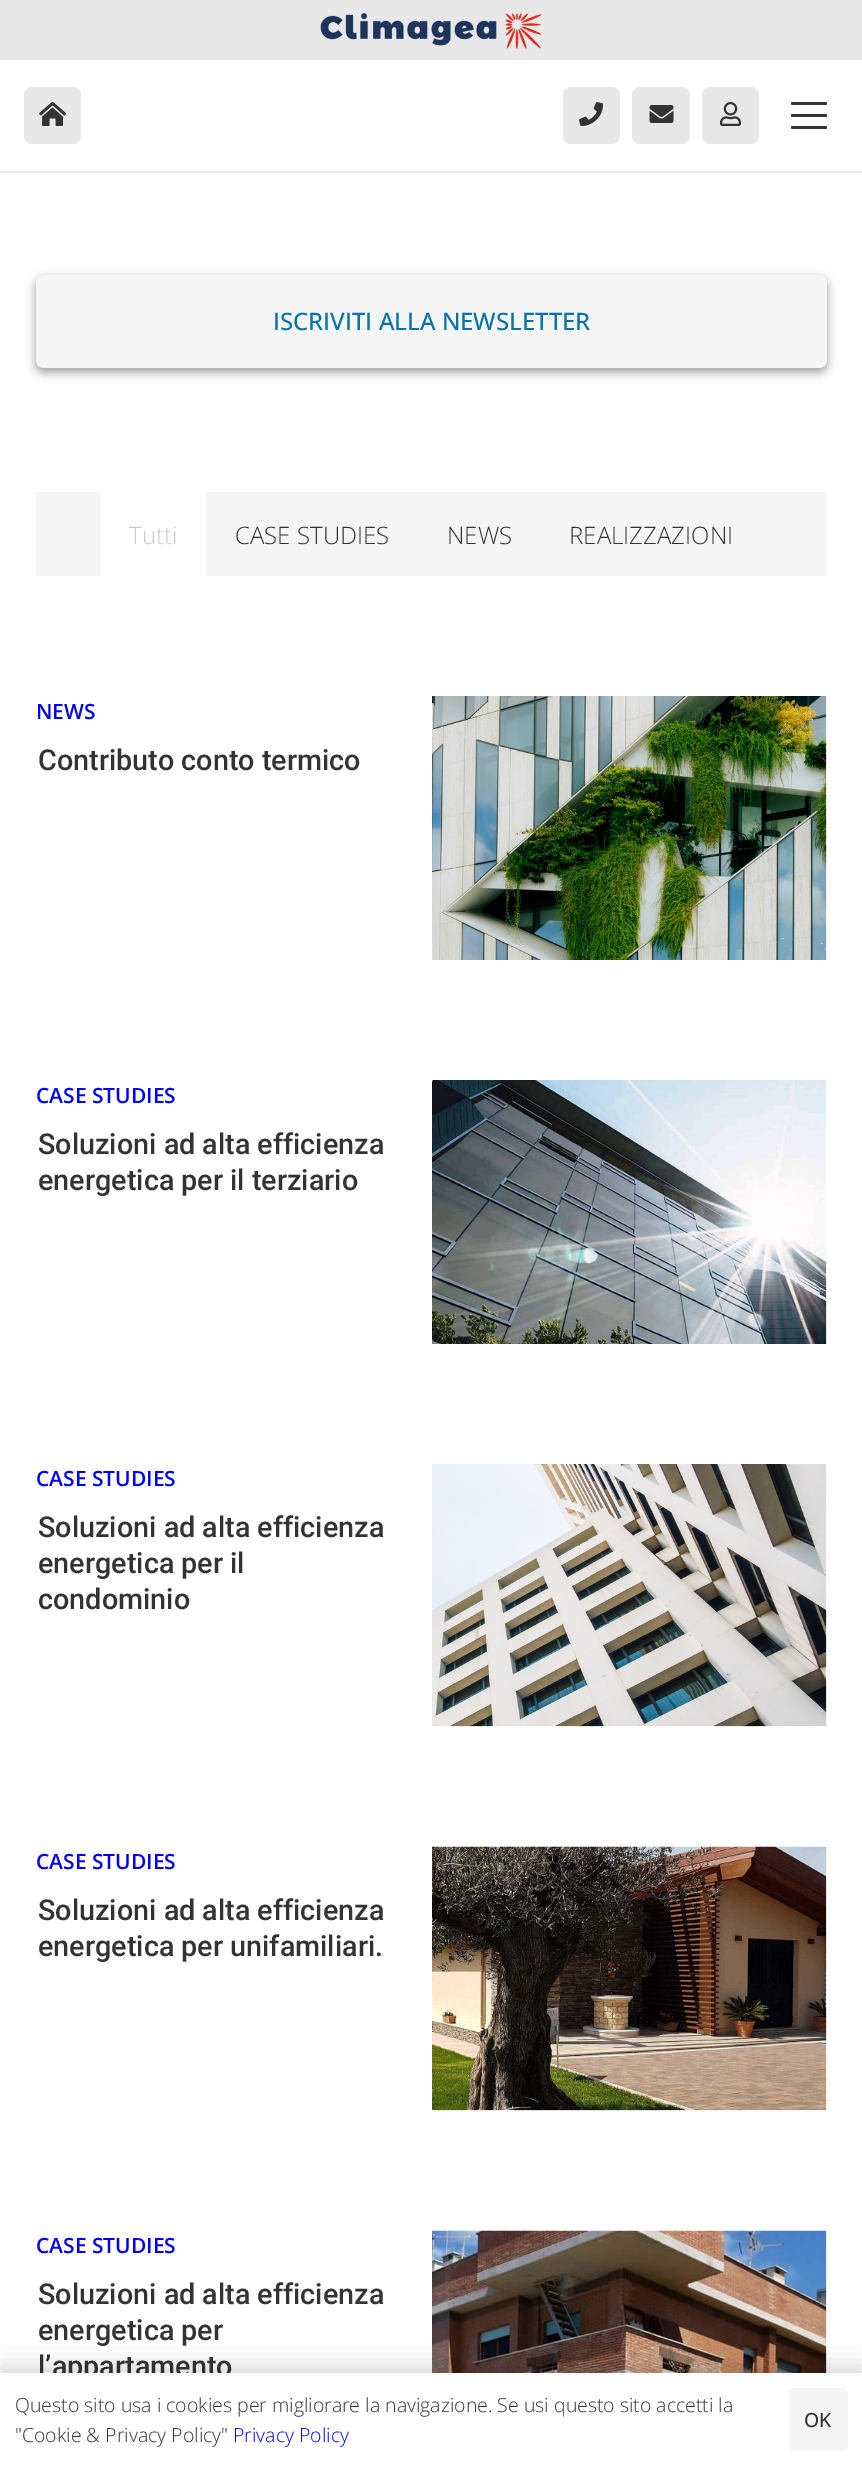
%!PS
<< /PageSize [862 2465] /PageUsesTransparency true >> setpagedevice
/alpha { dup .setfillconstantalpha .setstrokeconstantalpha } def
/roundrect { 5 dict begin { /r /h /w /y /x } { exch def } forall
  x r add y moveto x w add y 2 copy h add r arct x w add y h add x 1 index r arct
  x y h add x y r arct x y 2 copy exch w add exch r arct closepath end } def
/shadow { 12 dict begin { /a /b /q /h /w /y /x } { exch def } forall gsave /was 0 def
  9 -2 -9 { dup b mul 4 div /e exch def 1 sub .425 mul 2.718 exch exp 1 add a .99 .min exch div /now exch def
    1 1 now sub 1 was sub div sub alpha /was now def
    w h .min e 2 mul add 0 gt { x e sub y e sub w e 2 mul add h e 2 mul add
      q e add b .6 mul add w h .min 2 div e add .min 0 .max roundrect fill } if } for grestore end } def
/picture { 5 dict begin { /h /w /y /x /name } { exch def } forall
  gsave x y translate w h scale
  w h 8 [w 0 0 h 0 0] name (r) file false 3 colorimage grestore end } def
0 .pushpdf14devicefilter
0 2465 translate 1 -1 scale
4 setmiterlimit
1 setgray
0 0 862 2465 rectfill
0.91 setgray
0 0 862 60 rectfill
(img1.rgb) 320 13 222 36 picture
0.922 setgray
newpath 0 171 moveto 0 173 lineto 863 173 lineto 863 62 lineto 862 62 lineto 862 171 lineto closepath fill
0.91 setgray
24 87 57 57 8 roundrect fill
(img2.rgb) 39 102 27 24 picture
563 87 57 57 8 roundrect fill
(img3.rgb) 579 102 25 24 picture
632 87 58 57 8 roundrect fill
(img4.rgb) 649 105 25 18 picture
702 87 57 57 8 roundrect fill
(img5.rgb) 720 102 21 24 picture
0.2 setgray
791 114 36 3 1.5 roundrect fill
791 102 36 3 1.5 roundrect fill
791 126 36 3 1.5 roundrect fill
0 setgray
36 279 791 93 8 5 0.4 shadow
0.961 setgray
36 275 791 93 8 roundrect fill
/OpenSans-Medium [24 0 0 -24 0 0] selectfont
0.016 0.451 0.667 setrgbcolor
273 330 moveto (ISCRIVITI ALLA NEWSLETTER) show
0.961 setgray
36 492 791 84 rectfill
1 setgray
101 492 105 84 rectfill
/OpenSans-Light [24 0 0 -24 0 0] selectfont
0.8 setgray
129 544 moveto (Tutti) show
0.2 setgray
235 544 moveto (CASE STUDIES) show
447 544 moveto (NEWS) show
569 544 moveto (REALIZZAZIONI) show
/OpenSans-SemiBold [21 0 0 -21 0 0] selectfont
0 0 1 setrgbcolor
36 719 moveto (NEWS) show
/Roboto-Medium [28.75 0 0 -28.75 0 0] selectfont
0.2 setgray
38 770 moveto (Contributo conto termico) show
(img6.rgb) 432 696 395 264 picture
/OpenSans-SemiBold [21 0 0 -21 0 0] selectfont
0 0 1 setrgbcolor
36 1103 moveto (CASE STUDIES) show
/Roboto-Medium [28.75 0 0 -28.75 0 0] selectfont
0.2 setgray
38 1154 moveto (Soluzioni ad alta efficienza) show
38 1190 moveto (energetica per il terziario) show
(img7.rgb) 432 1080 395 264 picture
/OpenSans-SemiBold [21 0 0 -21 0 0] selectfont
0 0 1 setrgbcolor
36 1486 moveto (CASE STUDIES) show
/Roboto-Medium [28.75 0 0 -28.75 0 0] selectfont
0.2 setgray
38 1537 moveto (Soluzioni ad alta efficienza) show
38 1573 moveto (energetica per il) show
38 1609 moveto (condominio) show
(img8.rgb) 432 1464 395 263 picture
/OpenSans-SemiBold [21 0 0 -21 0 0] selectfont
0 0 1 setrgbcolor
36 1869 moveto (CASE STUDIES) show
/Roboto-Medium [28.75 0 0 -28.75 0 0] selectfont
0.2 setgray
38 1920 moveto (Soluzioni ad alta efficienza) show
38 1956 moveto (energetica per unifamiliari.) show
(img9.rgb) 432 1846 395 265 picture
/OpenSans-SemiBold [21 0 0 -21 0 0] selectfont
0 0 1 setrgbcolor
36 2253 moveto (CASE STUDIES) show
/Roboto-Medium [28.75 0 0 -28.75 0 0] selectfont
0.2 setgray
38 2304 moveto (Soluzioni ad alta efficienza) show
38 2340 moveto (energetica per) show
38 2376 moveto (l’appartamento) show
(img10.rgb) 432 2230 395 143 picture
0 setgray
0 2366 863 93 0 11 0.15 shadow
1 setgray
0 2373 862 92 rectfill
/OpenSans-Light [19.5 0 0 -19.5 0 0] selectfont
0.2 setgray
15 2412 moveto (Questo sito usa i cookies per migliorare la navigazione. Se usi questo sito accetti la) show
15 2442 moveto ("Cookie & Privacy Policy") show
0 0 1 setrgbcolor
233 2442 moveto (Privacy Policy) show
0.961 setgray
789 2388 59 63 6 roundrect fill
/OpenSans-Medium [19.5 0 0 -19.5 0 0] selectfont
0.2 setgray
804 2427 moveto (OK) show
.poppdf14devicefilter showpage
